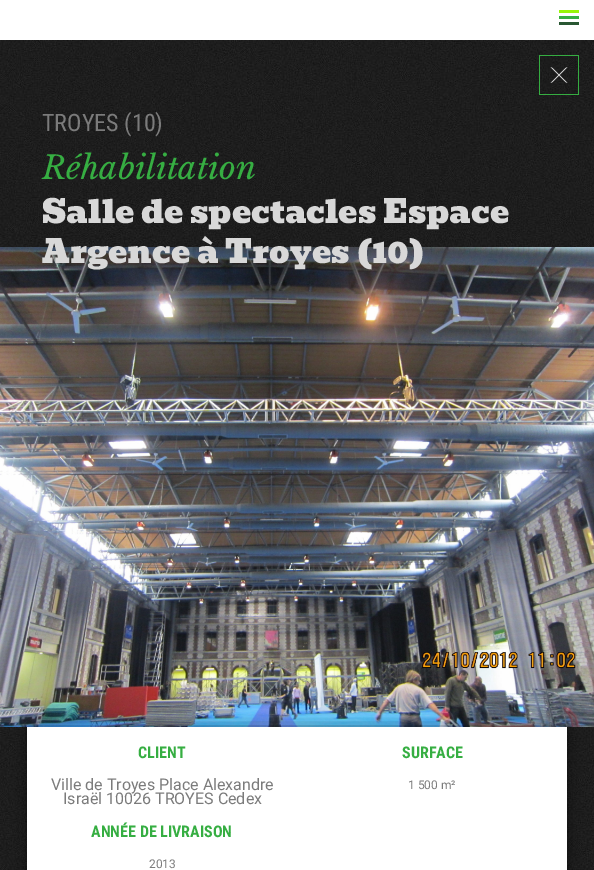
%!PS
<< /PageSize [594 870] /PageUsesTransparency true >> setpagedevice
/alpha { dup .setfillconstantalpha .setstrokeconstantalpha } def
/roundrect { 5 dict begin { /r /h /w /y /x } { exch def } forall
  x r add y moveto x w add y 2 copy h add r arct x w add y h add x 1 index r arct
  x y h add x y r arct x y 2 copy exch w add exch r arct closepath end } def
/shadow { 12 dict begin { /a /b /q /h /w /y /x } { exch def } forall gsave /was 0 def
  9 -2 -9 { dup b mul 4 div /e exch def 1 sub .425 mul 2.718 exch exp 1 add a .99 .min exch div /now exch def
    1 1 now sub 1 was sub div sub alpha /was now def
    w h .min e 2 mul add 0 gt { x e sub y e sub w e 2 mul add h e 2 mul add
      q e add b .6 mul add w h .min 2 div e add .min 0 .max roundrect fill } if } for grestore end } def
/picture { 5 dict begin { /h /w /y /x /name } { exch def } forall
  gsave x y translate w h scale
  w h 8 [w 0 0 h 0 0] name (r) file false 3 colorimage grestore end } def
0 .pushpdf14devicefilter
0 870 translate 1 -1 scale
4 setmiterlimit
1 setgray
0 0 594 870 rectfill
(img1.rgb) 0 40 594 830 picture
0.596 0.965 0.031 setrgbcolor
559 10 20 3 rectfill
0.212 0.682 0.259 setrgbcolor
559 16 20 3 rectfill
0.161 0.341 0.196 setrgbcolor
559 22 20 3 rectfill
(img2.rgb) 539 55 40 40 picture
/RobotoCondensed-Regular [24 0 0 -24 0 0] selectfont
0.482 setgray
42 131 moveto (TROYES \(10\)) show
/LibreBaskerville-Italic [32 0 0 -32 0 0] selectfont
0.212 0.682 0.259 setrgbcolor
42 179 moveto (Réhabilitation) show
/Bevan-Regular [32 0 0 -32 0 0] selectfont
0.847 setgray
42 223 moveto (Salle de spectacles Espace) show
(img3.rgb) 0 247 594 480 picture
42 263 moveto (Argence à Troyes \(10\)) show
0 setgray
27 727 540 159 0 7.5 0.5 shadow
1 setgray
27 727 540 143 rectfill
/RobotoCondensed-Bold [16 0 0 -16 0 0] selectfont
0.212 0.682 0.259 setrgbcolor
138 758 moveto (CLIENT) show
/Roboto-Regular [16 0 0 -16 0 0] selectfont
0.482 setgray
51 790 moveto (Ville de Troyes Place Alexandre) show
63 804 moveto (Israël 10026 TROYES Cedex) show
/RobotoCondensed-Bold [16 0 0 -16 0 0] selectfont
0.212 0.682 0.259 setrgbcolor
402 758 moveto (SURFACE) show
/Roboto-Regular [12 0 0 -12 0 0] selectfont
0.482 setgray
408 789 moveto (1 500 m²) show
/RobotoCondensed-Bold [16 0 0 -16 0 0] selectfont
0.212 0.682 0.259 setrgbcolor
91 837 moveto (ANNÉE DE LIVRAISON) show
/Roboto-Regular [12 0 0 -12 0 0] selectfont
0.482 setgray
149 868 moveto (2013) show
.poppdf14devicefilter showpage
